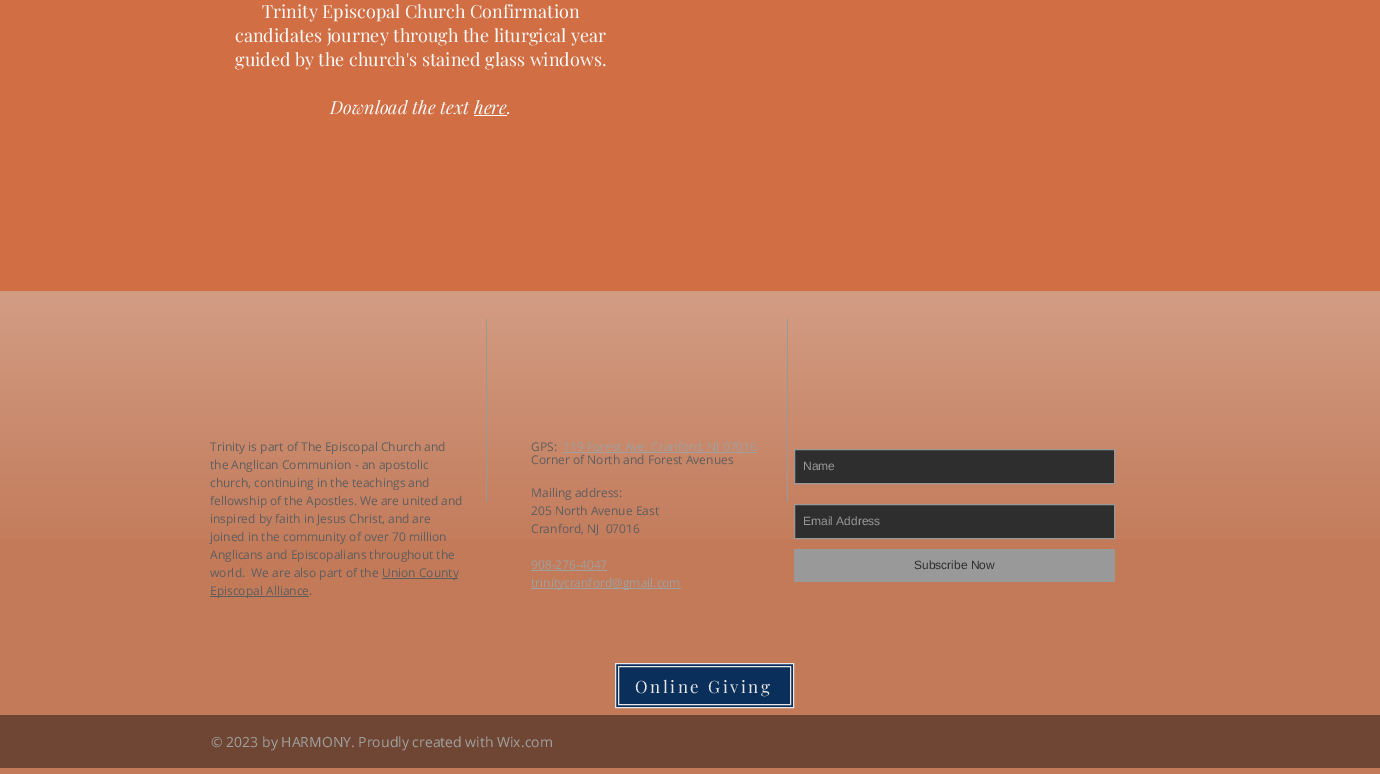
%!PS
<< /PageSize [1380 774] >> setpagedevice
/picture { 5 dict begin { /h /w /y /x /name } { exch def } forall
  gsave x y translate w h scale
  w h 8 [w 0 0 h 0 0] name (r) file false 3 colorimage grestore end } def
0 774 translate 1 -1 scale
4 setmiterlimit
0.82 0.431 0.263 setrgbcolor
0 0 1380 774 rectfill
/PlayfairDisplay-Regular [18 0 0 -18 0 0] selectfont
0.98 setgray
262 18 moveto (Trinity Episcopal Church Confirmation) show
235 42 moveto (candidates journey through the liturgical year) show
235 66 moveto (guided by the church's stained glass windows.) show
/PlayfairDisplay-Italic [18 0 0 -18 0 0] selectfont
330 114 moveto (Download the text here.) show
474 115 33 1 rectfill
0.761 0.478 0.349 setrgbcolor
0 291 1380 483 rectfill
(img1.rgb) 0 291 1380 248 picture
0.6 setgray
486 319 1 183 rectfill
787 319 1 183 rectfill
/OpenSans-Regular [12 0 0 -12 0 0] selectfont
0.376 0.369 0.369 setrgbcolor
210 451 moveto (Trinity is part of The Episcopal Church and) show
210 469 moveto (the Anglican Communion - an apostolic) show
210 487 moveto (church, continuing in the teachings and) show
210 505 moveto (fellowship of the Apostles. We are united and) show
210 523 moveto (inspired by faith in Jesus Christ, and are) show
210 541 moveto (joined in the community of over 70 million) show
210 559 moveto (Anglicans and Episcopalians throughout the) show
210 577 moveto (world.  We are also part of the) show
382 578 76 1 rectfill
382 577 moveto (Union County) show
210 596 99 1 rectfill
210 595 moveto (Episcopal Alliance.) show
531 451 moveto (GPS:) show
0.627 0.627 0.624 setrgbcolor
563 452 194 1 rectfill
563 451 moveto (119 Forest Ave, Cranford, NJ 07016) show
0.376 0.369 0.369 setrgbcolor
531 464 moveto (Corner of North and Forest Avenues) show
531 497 moveto (Mailing address:) show
531 515 moveto (205 North Avenue East) show
531 533 moveto (Cranford, NJ  07016) show
0.627 0.627 0.624 setrgbcolor
531 569 moveto (908-276-4047) show
531 570 76 1 rectfill
531 588 150 1 rectfill
531 587 moveto (trinitycranford@gmail.com) show
0.184 0.18 0.18 setrgbcolor
newpath 794.5 449.5 moveto 1114.5 449.5 lineto 1114.5 483.5 lineto 794.5 483.5 lineto closepath gsave fill grestore
0.6 setgray
stroke
/LiberationSans-Regular [12 0 0 -12 0 0] selectfont
803 470 moveto (Name) show
0.184 0.18 0.18 setrgbcolor
newpath 794.5 504.5 moveto 1114.5 504.5 lineto 1114.5 538.5 lineto 794.5 538.5 lineto closepath gsave fill grestore
0.6 setgray
stroke
803 525 moveto (Email Address) show
794 549 321 33 rectfill
0.184 0.18 0.18 setrgbcolor
914 569 moveto (Subscribe Now) show
0.043 0.184 0.357 setrgbcolor
newpath 615.5 663.5 moveto 793.5 663.5 lineto 793.5 707.5 lineto 615.5 707.5 lineto closepath gsave fill grestore
0.902 setgray
stroke
618.5 666.5 172 38 rectstroke
/PlayfairDisplay-Regular [17 0 0 -17 0 0] selectfont
635 693 moveto 2.5 0 (Online Giving) ashow
0.435 0.275 0.2 setrgbcolor
0 715 1380 53 rectfill
/OpenSans-Regular [14 0 0 -14 0 0] selectfont
0.627 0.627 0.624 setrgbcolor
211 747 moveto (© 2023 by HARMONY. Proudly created with Wix.com) show
showpage
